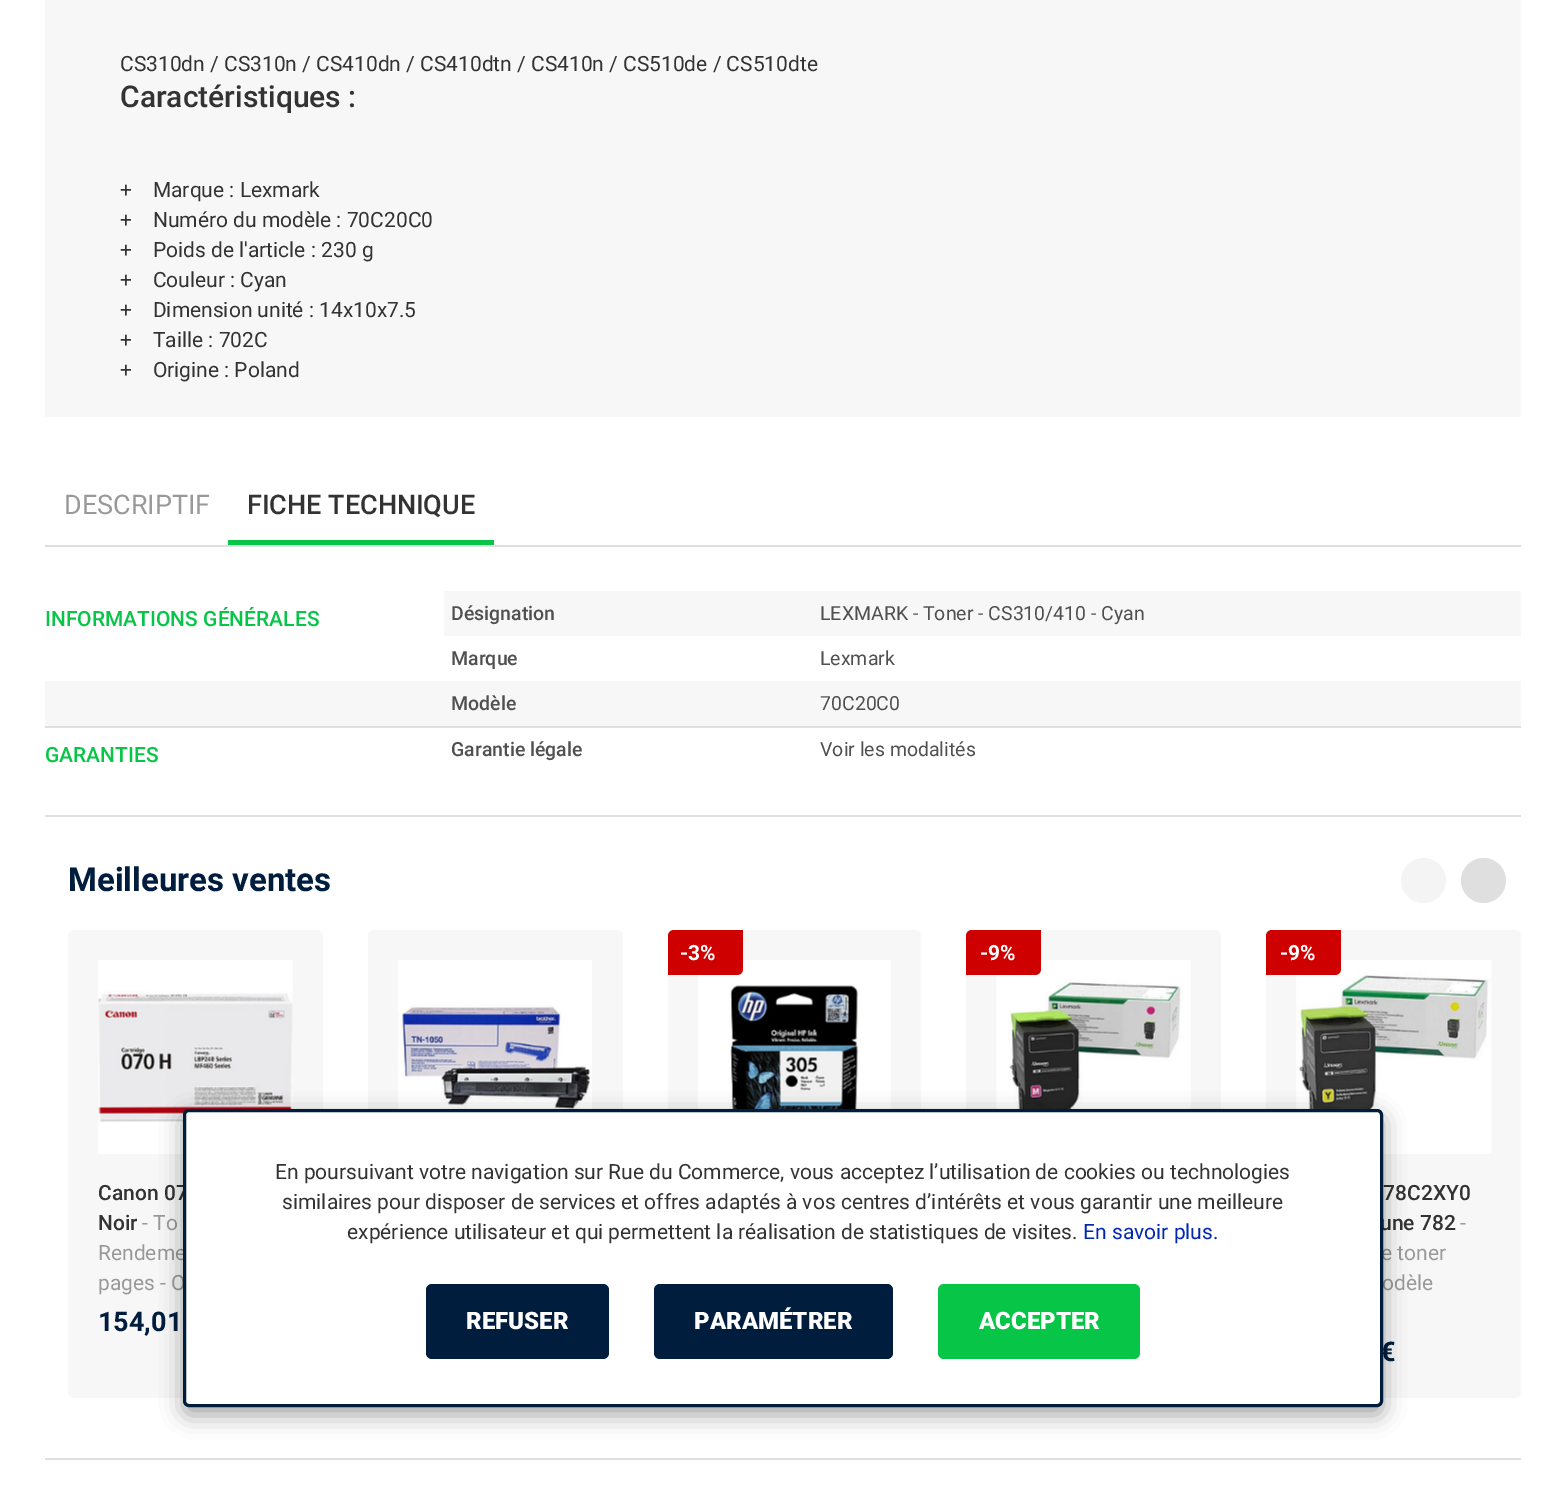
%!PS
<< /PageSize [1566 1497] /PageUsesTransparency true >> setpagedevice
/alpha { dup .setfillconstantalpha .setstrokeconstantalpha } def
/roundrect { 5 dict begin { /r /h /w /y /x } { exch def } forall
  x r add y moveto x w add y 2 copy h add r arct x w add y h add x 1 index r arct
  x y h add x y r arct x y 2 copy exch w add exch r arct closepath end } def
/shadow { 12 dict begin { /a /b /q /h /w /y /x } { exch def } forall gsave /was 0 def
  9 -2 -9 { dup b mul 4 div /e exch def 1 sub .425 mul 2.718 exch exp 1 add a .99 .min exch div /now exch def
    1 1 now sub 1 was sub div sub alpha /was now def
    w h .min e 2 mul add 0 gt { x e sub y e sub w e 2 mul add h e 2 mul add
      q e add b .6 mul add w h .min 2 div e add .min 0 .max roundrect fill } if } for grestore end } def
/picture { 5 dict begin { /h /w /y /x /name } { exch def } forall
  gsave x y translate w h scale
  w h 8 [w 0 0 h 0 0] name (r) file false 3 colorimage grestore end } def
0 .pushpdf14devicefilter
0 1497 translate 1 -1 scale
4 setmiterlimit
1 setgray
0 0 1566 1497 rectfill
0.969 setgray
45 0 1476 417 rectfill
/Roboto-Regular [21 0 0 -21 0 0] selectfont
0.2 setgray
120 71 moveto (CS310dn / CS310n / CS410dn / CS410dtn / CS410n / CS510de / CS510dte) show
/Roboto-Medium [30 0 0 -30 0 0] selectfont
120 107 moveto (Caractéristiques :) show
/Roboto-Regular [21 0 0 -21 0 0] selectfont
120 197 moveto (+    Marque : Lexmark) show
120 227 moveto (+    Numéro du modèle : 70C20C0) show
120 257 moveto (+    Poids de l'article : 230 g) show
120 287 moveto (+    Couleur : Cyan) show
120 317 moveto (+    Dimension unité : 14x10x7.5) show
120 347 moveto (+    Taille : 702C) show
120 377 moveto (+    Origine : Poland) show
0.875 setgray
45 545 1476 2 rectfill
/Roboto-Regular [27 0 0 -27 0 0] selectfont
0.6 setgray
64 514 moveto (DESCRIPTIF) show
0.027 0.773 0.275 setrgbcolor
228 540 266 5 rectfill
/Roboto-Medium [27 0 0 -27 0 0] selectfont
0.2 setgray
247 514 moveto (FICHE TECHNIQUE) show
0.969 setgray
444 591 1077 45 rectfill
/Roboto-Medium [21 0 0 -21 0 0] selectfont
0.027 0.773 0.275 setrgbcolor
45 626 moveto (INFORMATIONS GÉNÉRALES) show
/Roboto-Medium [19.5 0 0 -19.5 0 0] selectfont
0.314 setgray
451 620 moveto (Désignation) show
/Roboto-Regular [19.5 0 0 -19.5 0 0] selectfont
820 620 moveto (LEXMARK - Toner - CS310/410 - Cyan) show
/Roboto-Medium [19.5 0 0 -19.5 0 0] selectfont
451 665 moveto (Marque) show
/Roboto-Regular [19.5 0 0 -19.5 0 0] selectfont
820 665 moveto (Lexmark) show
0.969 setgray
45 681 1476 45 rectfill
/Roboto-Medium [19.5 0 0 -19.5 0 0] selectfont
0.314 setgray
451 710 moveto (Modèle) show
/Roboto-Regular [19.5 0 0 -19.5 0 0] selectfont
820 710 moveto (70C20C0) show
0.875 setgray
45 726 1476 2 rectfill
/Roboto-Medium [21 0 0 -21 0 0] selectfont
0.027 0.773 0.275 setrgbcolor
45 762 moveto (GARANTIES) show
/Roboto-Medium [19.5 0 0 -19.5 0 0] selectfont
0.314 setgray
451 756 moveto (Garantie légale) show
/Roboto-Regular [19.5 0 0 -19.5 0 0] selectfont
820 756 moveto (Voir les modalités) show
0.875 setgray
45 815 1476 2 rectfill
/Roboto-Bold [33 0 0 -33 0 0] selectfont
0 0.114 0.239 setrgbcolor
68 891 moveto (Meilleures ventes) show
0.957 setgray
newpath 1423.5 880.5 22.5 0 360 arc closepath fill
0.875 setgray
newpath 1483.5 880.5 22.5 0 360 arc closepath fill
0.969 setgray
68 930 255 468 6 roundrect fill
(img1.rgb) 98 960 195 194 picture
/Roboto-Medium [21 0 0 -21 0 0] selectfont
0.2 setgray
98 1200 moveto (Canon 07) show
98 1230 moveto (Noir) show
/Roboto-Regular [21 0 0 -21 0 0] selectfont
0.6 setgray
142 1230 moveto (- To) show
98 1260 moveto (Rendeme) show
98 1290 moveto (pages - O) show
/Roboto-Bold [27 0 0 -27 0 0] selectfont
0 0.114 0.239 setrgbcolor
98 1331 moveto (154,01) show
0.969 setgray
368 930 255 468 6 roundrect fill
(img2.rgb) 398 960 194 149 picture
668 930 253 468 6 roundrect fill
(img3.rgb) 698 960 193 149 picture
0.812 0 0 setrgbcolor
newpath 674 930 moveto 743 930 lineto 743 969 lineto 743 972.5 740.5 975 737 975 curveto 668 975 lineto 668 936 lineto 668 932.5 670.5 930 674 930 curveto closepath fill
/Roboto-Bold [21 0 0 -21 0 0] selectfont
1 setgray
680 960 moveto (-3%) show
0.969 setgray
966 930 255 468 6 roundrect fill
(img4.rgb) 996 960 195 149 picture
0.812 0 0 setrgbcolor
newpath 972 930 moveto 1041 930 lineto 1041 969 lineto 1041 972.5 1038.5 975 1035 975 curveto 966 975 lineto 966 936 lineto 966 932.5 968.5 930 972 930 curveto closepath fill
1 setgray
980 960 moveto (-9%) show
0.969 setgray
1266 930 255 468 6 roundrect fill
(img5.rgb) 1296 960 196 194 picture
0.812 0 0 setrgbcolor
newpath 1272 930 moveto 1341 930 lineto 1341 969 lineto 1341 972.5 1338.5 975 1335 975 curveto 1266 975 lineto 1266 936 lineto 1266 932.5 1268.5 930 1272 930 curveto closepath fill
1 setgray
1280 960 moveto (-9%) show
/Roboto-Bold [27 0 0 -27 0 0] selectfont
0 0.114 0.239 setrgbcolor
1380 1361 moveto (€) show
/Roboto-Medium [21 0 0 -21 0 0] selectfont
0.2 setgray
1383 1200 moveto (78C2XY0) show
1380 1230 moveto (une 782) show
/Roboto-Regular [21 0 0 -21 0 0] selectfont
0.6 setgray
1460 1230 moveto (-) show
1381 1260 moveto (e toner) show
1382 1290 moveto (odèle) show
0.875 setgray
45 1458 1476 2 rectfill
0 setgray
183 1116 1200 299 6 11 0.35 shadow
1 setgray
184.5 1110.5 1197 295 4.5 roundrect gsave fill grestore
0 0.114 0.239 setrgbcolor
3 setlinewidth
stroke
0.2 setgray
275 1179 moveto (En poursuivant votre navigation sur Rue du Commerce, vous acceptez l’utilisation de cookies ou technologies) show
282 1209 moveto (similaires pour disposer de services et offres adaptés à vos centres d’intérêts et vous garantir une meilleure) show
347 1239 moveto (expérience utilisateur et qui permettent la réalisation de statistiques de visites.) show
0 0.161 0.686 setrgbcolor
1083 1239 moveto (En savoir plus.) show
0 0.114 0.239 setrgbcolor
426 1284 183 75 6 roundrect fill
/Roboto-Black [24 0 0 -24 0 0] selectfont
1 setgray
466 1329 moveto (REFUSER) show
0 0.114 0.239 setrgbcolor
654 1284 239 75 6 roundrect fill
1 setgray
694 1329 moveto (PARAMÉTRER) show
0.027 0.773 0.275 setrgbcolor
938 1284 202 75 6 roundrect fill
1 setgray
979 1329 moveto (ACCEPTER) show
.poppdf14devicefilter showpage
